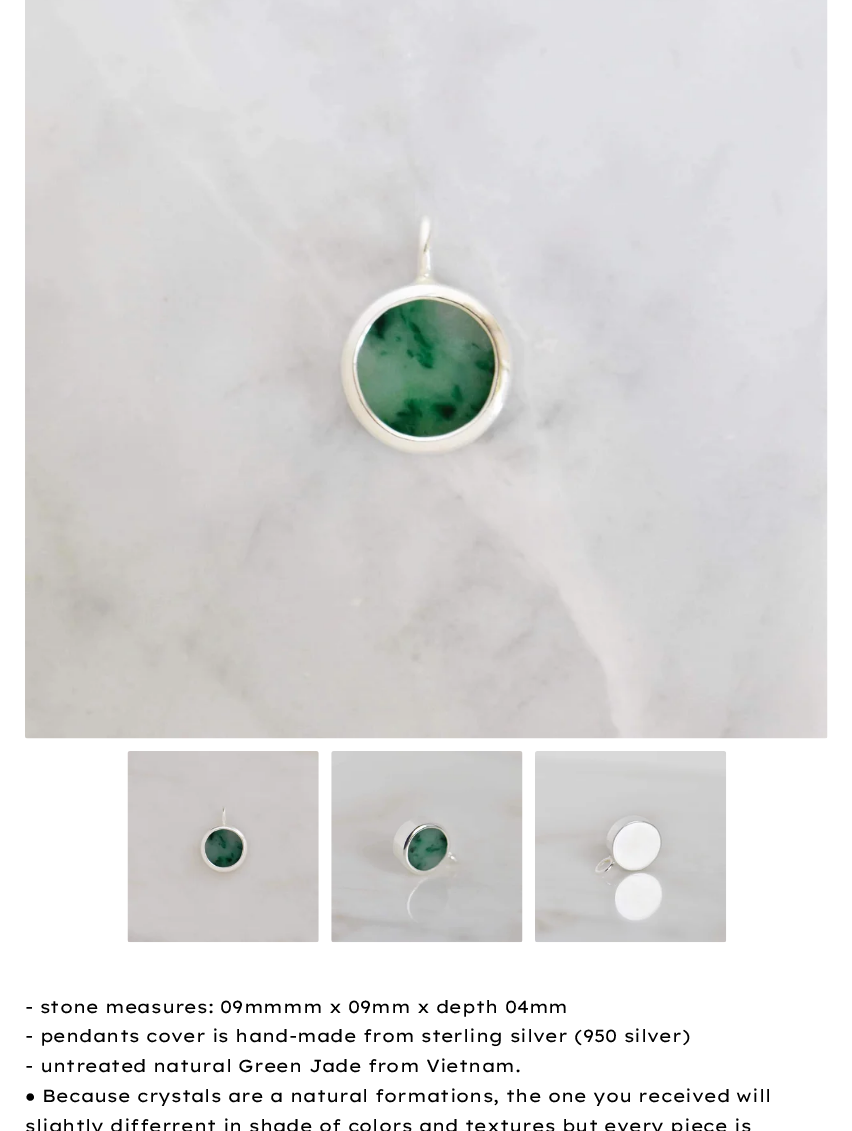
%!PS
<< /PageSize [852 1131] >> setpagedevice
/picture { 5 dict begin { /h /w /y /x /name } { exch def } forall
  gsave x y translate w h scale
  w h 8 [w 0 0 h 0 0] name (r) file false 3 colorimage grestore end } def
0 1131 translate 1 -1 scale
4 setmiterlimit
1 setgray
0 0 852 1131 rectfill
(img1.rgb) 25 0 803 739 picture
(img2.rgb) 127 751 192 192 picture
(img3.rgb) 331 751 192 192 picture
(img4.rgb) 535 751 192 192 picture
/LexendExa-Regular [17.5 0 0 -17.5 0 0] selectfont
0 setgray
25 1013 moveto (- stone measures: 09mmmm x 09mm x depth 04mm) show
25 1042 moveto (- pendants cover is hand-made from sterling silver \(950 silver\)) show
25 1072 moveto (- untreated natural Green Jade from Vietnam.) show
/LiberationSans-Regular [17.5 0 0 -17.5 0 0] selectfont
25 1102 moveto (●) show
/LexendExa-Regular [17.5 0 0 -17.5 0 0] selectfont
42 1102 moveto (Because crystals are a natural formations, the one you received will) show
25 1132 moveto (slightly differrent in shade of colors and textures but every piece is) show
showpage
